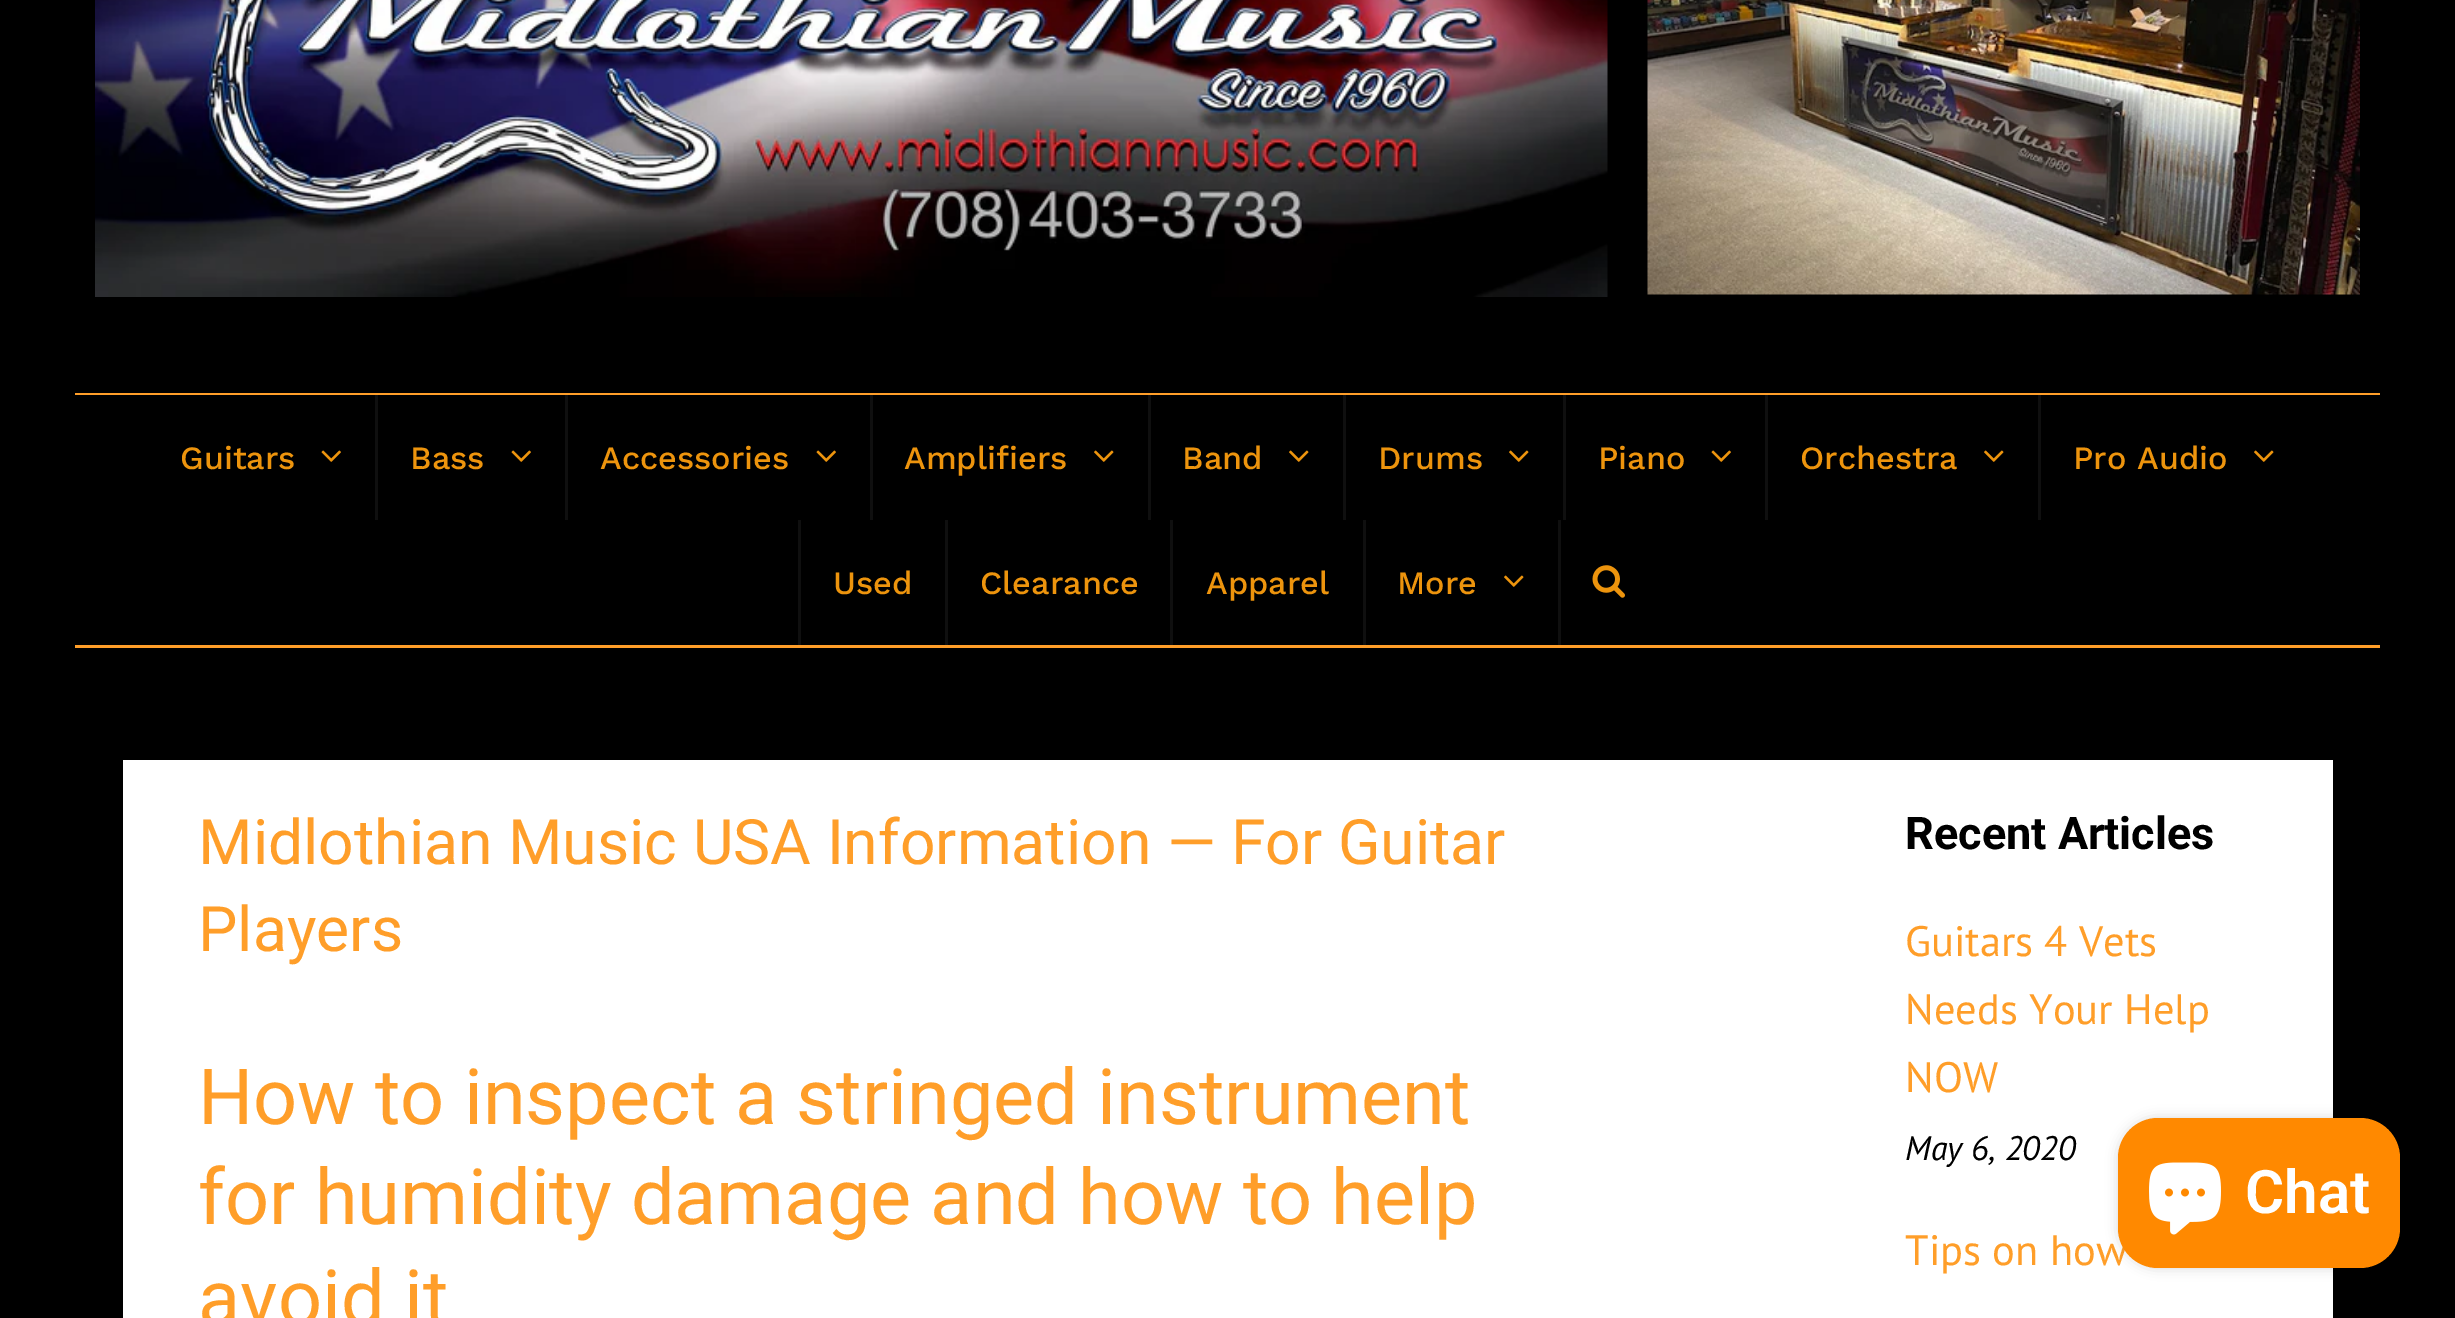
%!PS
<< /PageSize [2455 1318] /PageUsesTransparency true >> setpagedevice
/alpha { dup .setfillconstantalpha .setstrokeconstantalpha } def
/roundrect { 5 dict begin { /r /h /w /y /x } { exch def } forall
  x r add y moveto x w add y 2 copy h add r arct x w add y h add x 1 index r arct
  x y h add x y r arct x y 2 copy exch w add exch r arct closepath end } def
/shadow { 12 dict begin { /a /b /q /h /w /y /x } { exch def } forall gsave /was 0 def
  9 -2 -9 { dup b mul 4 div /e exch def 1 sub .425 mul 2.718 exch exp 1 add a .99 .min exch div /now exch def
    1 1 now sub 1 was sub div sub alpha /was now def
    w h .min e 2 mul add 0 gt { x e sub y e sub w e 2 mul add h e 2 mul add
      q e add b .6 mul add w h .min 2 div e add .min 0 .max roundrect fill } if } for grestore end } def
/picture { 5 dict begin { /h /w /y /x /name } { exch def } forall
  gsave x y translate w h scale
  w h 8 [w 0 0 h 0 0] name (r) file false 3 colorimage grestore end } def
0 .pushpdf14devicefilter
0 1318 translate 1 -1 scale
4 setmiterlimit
0 setgray
0 0 2455 1318 rectfill
(img1.rgb) 95 0 1513 297 picture
(img2.rgb) 1647 0 713 295 picture
1 0.62 0.161 setrgbcolor
75 393 2305 2 rectfill
75 645 2305 3 rectfill
/WorkSans-Medium [32.5 0 0 -32.5 0 0] selectfont
0.929 0.58 0.051 setrgbcolor
180 469 moveto (Guitars) show
(img3.rgb) 321 450 20 12 picture
0.059 setgray
375 395 3 125 rectfill
0.929 0.58 0.051 setrgbcolor
410 469 moveto (Bass) show
(img3.rgb) 511 450 20 12 picture
0.059 setgray
565 395 3 125 rectfill
0.929 0.58 0.051 setrgbcolor
600 469 moveto (Accessories) show
(img3.rgb) 816 450 20 12 picture
0.059 setgray
870 395 3 125 rectfill
0.929 0.58 0.051 setrgbcolor
904 469 moveto (Amplifiers) show
(img4.rgb) 1094 450 20 12 picture
0.059 setgray
1148 395 3 125 rectfill
0.929 0.58 0.051 setrgbcolor
1182 469 moveto (Band) show
(img4.rgb) 1289 450 20 12 picture
0.059 setgray
1343 395 3 125 rectfill
0.929 0.58 0.051 setrgbcolor
1378 469 moveto (Drums) show
(img4.rgb) 1509 450 20 12 picture
0.059 setgray
1563 395 3 125 rectfill
0.929 0.58 0.051 setrgbcolor
1598 469 moveto (Piano) show
(img3.rgb) 1711 450 20 12 picture
0.059 setgray
1765 395 3 125 rectfill
0.929 0.58 0.051 setrgbcolor
1800 469 moveto (Orchestra) show
(img4.rgb) 1984 450 20 12 picture
0.059 setgray
2038 395 3 125 rectfill
0.929 0.58 0.051 setrgbcolor
2073 469 moveto (Pro Audio) show
(img4.rgb) 2254 450 20 12 picture
0.059 setgray
798 520 3 125 rectfill
0.929 0.58 0.051 setrgbcolor
833 594 moveto (Used) show
0.059 setgray
945 520 3 125 rectfill
0.929 0.58 0.051 setrgbcolor
980 594 moveto (Clearance) show
0.059 setgray
1170 520 3 125 rectfill
0.929 0.58 0.051 setrgbcolor
1206 594 moveto (Apparel) show
0.059 setgray
1363 520 3 125 rectfill
0.929 0.58 0.051 setrgbcolor
1397 594 moveto (More) show
(img4.rgb) 1504 575 20 12 picture
0.059 setgray
1558 520 3 125 rectfill
(img5.rgb) 1592 565 33 33 picture
1 setgray
123 760 2210 558 rectfill
/Roboto-Regular [62.5 0 0 -62.5 0 0] selectfont
1 0.62 0.161 setrgbcolor
198 864 moveto (Midlothian Music USA Information — For Guitar) show
198 951 moveto (Players) show
/Roboto-Regular [77.5 0 0 -77.5 0 0] selectfont
198 1124 moveto (How to inspect a stringed instrument) show
198 1224 moveto (for humidity damage and how to help) show
198 1325 moveto (avoid it) show
/Roboto-Bold [45 0 0 -45 0 0] selectfont
0 setgray
1905 849 moveto (Recent Articles) show
/PTSans-Regular [42.5 0 0 -42.5 0 0] selectfont
1 0.62 0.161 setrgbcolor
1905 956 moveto (Guitars 4 Vets) show
1905 1024 moveto (Needs Your Help) show
1905 1092 moveto (NOW) show
/PTSans-Italic [34 0 0 -34 0 0] selectfont
0 setgray
1905 1160 moveto (May 6, 2020) show
/PTSans-Regular [42.5 0 0 -42.5 0 0] selectfont
1 0.62 0.161 setrgbcolor
1905 1265 moveto (Tips on how) show
0 setgray
2118 1118 282 150 40 6 0.15 shadow
1 0.537 0 setrgbcolor
2118 1118 282 150 40 roundrect fill
(img6.rgb) 2149 1162 72 73 picture
/Roboto-SemiBold [60 0 0 -60 0 0] selectfont
1 setgray
2245 1213 moveto (Chat) show
.poppdf14devicefilter showpage
